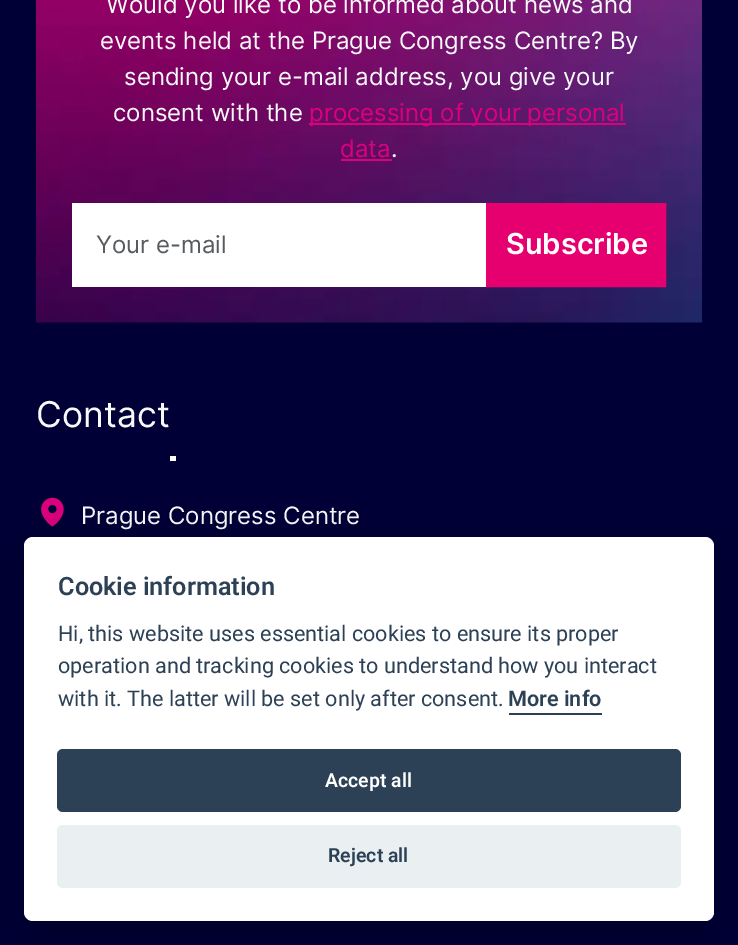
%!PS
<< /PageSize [738 945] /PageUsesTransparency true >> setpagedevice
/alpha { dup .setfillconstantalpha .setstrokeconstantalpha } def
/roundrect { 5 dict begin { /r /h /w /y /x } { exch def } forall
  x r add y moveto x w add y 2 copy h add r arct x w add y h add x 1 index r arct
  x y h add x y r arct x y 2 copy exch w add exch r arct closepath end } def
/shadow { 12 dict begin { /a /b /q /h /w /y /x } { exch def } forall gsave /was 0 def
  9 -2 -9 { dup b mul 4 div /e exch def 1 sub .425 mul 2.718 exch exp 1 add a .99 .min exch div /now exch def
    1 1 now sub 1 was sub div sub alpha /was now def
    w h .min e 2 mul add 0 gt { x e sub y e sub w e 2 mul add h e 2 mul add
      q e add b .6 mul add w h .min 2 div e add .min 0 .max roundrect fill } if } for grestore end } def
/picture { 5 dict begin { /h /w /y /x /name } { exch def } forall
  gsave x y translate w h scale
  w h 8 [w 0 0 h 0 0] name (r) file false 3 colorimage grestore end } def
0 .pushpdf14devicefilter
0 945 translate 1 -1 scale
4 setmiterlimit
0 0 0.216 setrgbcolor
0 0 738 945 rectfill
(img1.rgb) 36 0 666 323 picture
/Inter-Regular [24 0 0 -24 0 0] selectfont
0.973 0.976 0.98 setrgbcolor
106 13 moveto (Would you like to be informed about news and) show
100 49 moveto (events held at the Prague Congress Centre? By) show
124 85 moveto (sending your e-mail address, you give your) show
113 121 moveto (consent with the) show
0.863 0 0.49 setrgbcolor
309 123 317 2 rectfill
309 121 moveto (processing of your personal) show
340 157 moveto (data) show
341 159 51 2 rectfill
0.973 0.976 0.98 setrgbcolor
391 157 moveto (.) show
1 setgray
72 203 414 84 rectfill
0.349 0.361 0.373 setrgbcolor
96 253 moveto (Your e-mail) show
0.902 0 0.435 setrgbcolor
newpath 487 204 moveto 665 204 lineto 665 286 lineto 487 286 lineto closepath gsave fill grestore
0.914 0 0.439 setrgbcolor
2 setlinewidth
stroke
/Inter-SemiBold [29 0 0 -29 0 0] selectfont
1 setgray
506 254 moveto (Subscribe) show
/Inter-Regular [35.5 0 0 -35.5 0 0] selectfont
0.973 0.976 0.98 setrgbcolor
36 427 moveto (Contact) show
1 setgray
170 456 6 5 rectfill
(img2.rgb) 41 497 23 30 picture
/Inter-Regular [24 0 0 -24 0 0] selectfont
0.973 0.976 0.98 setrgbcolor
81 524 moveto (Prague Congress Centre) show
0.008 0.008 0.012 setrgbcolor
24 552 690 384 9 22.5 0.28 shadow
1 setgray
24 537 690 384 9 roundrect fill
/Roboto-SemiBold [25.25 0 0 -25.25 0 0] selectfont
0.176 0.255 0.337 setrgbcolor
58 595 moveto (Cookie information) show
/Roboto-Regular [21.6 0 0 -21.6 0 0] selectfont
58 641 moveto (Hi, this website uses essential cookies to ensure its proper) show
58 673 moveto (operation and tracking cookies to understand how you interact) show
58 706 moveto (with it. The latter will be set only after consent.) show
/Roboto-SemiBold [21.6 0 0 -21.6 0 0] selectfont
508 706 moveto (More info) show
509 713 93 2 rectfill
57 749 624 63 6 roundrect fill
/Roboto-SemiBold [19.5 0 0 -19.5 0 0] selectfont
1 setgray
325 787 moveto (Accept all) show
0.918 0.937 0.949 setrgbcolor
57 825 624 63 6 roundrect fill
0.176 0.255 0.337 setrgbcolor
328 862 moveto (Reject all) show
.poppdf14devicefilter showpage
